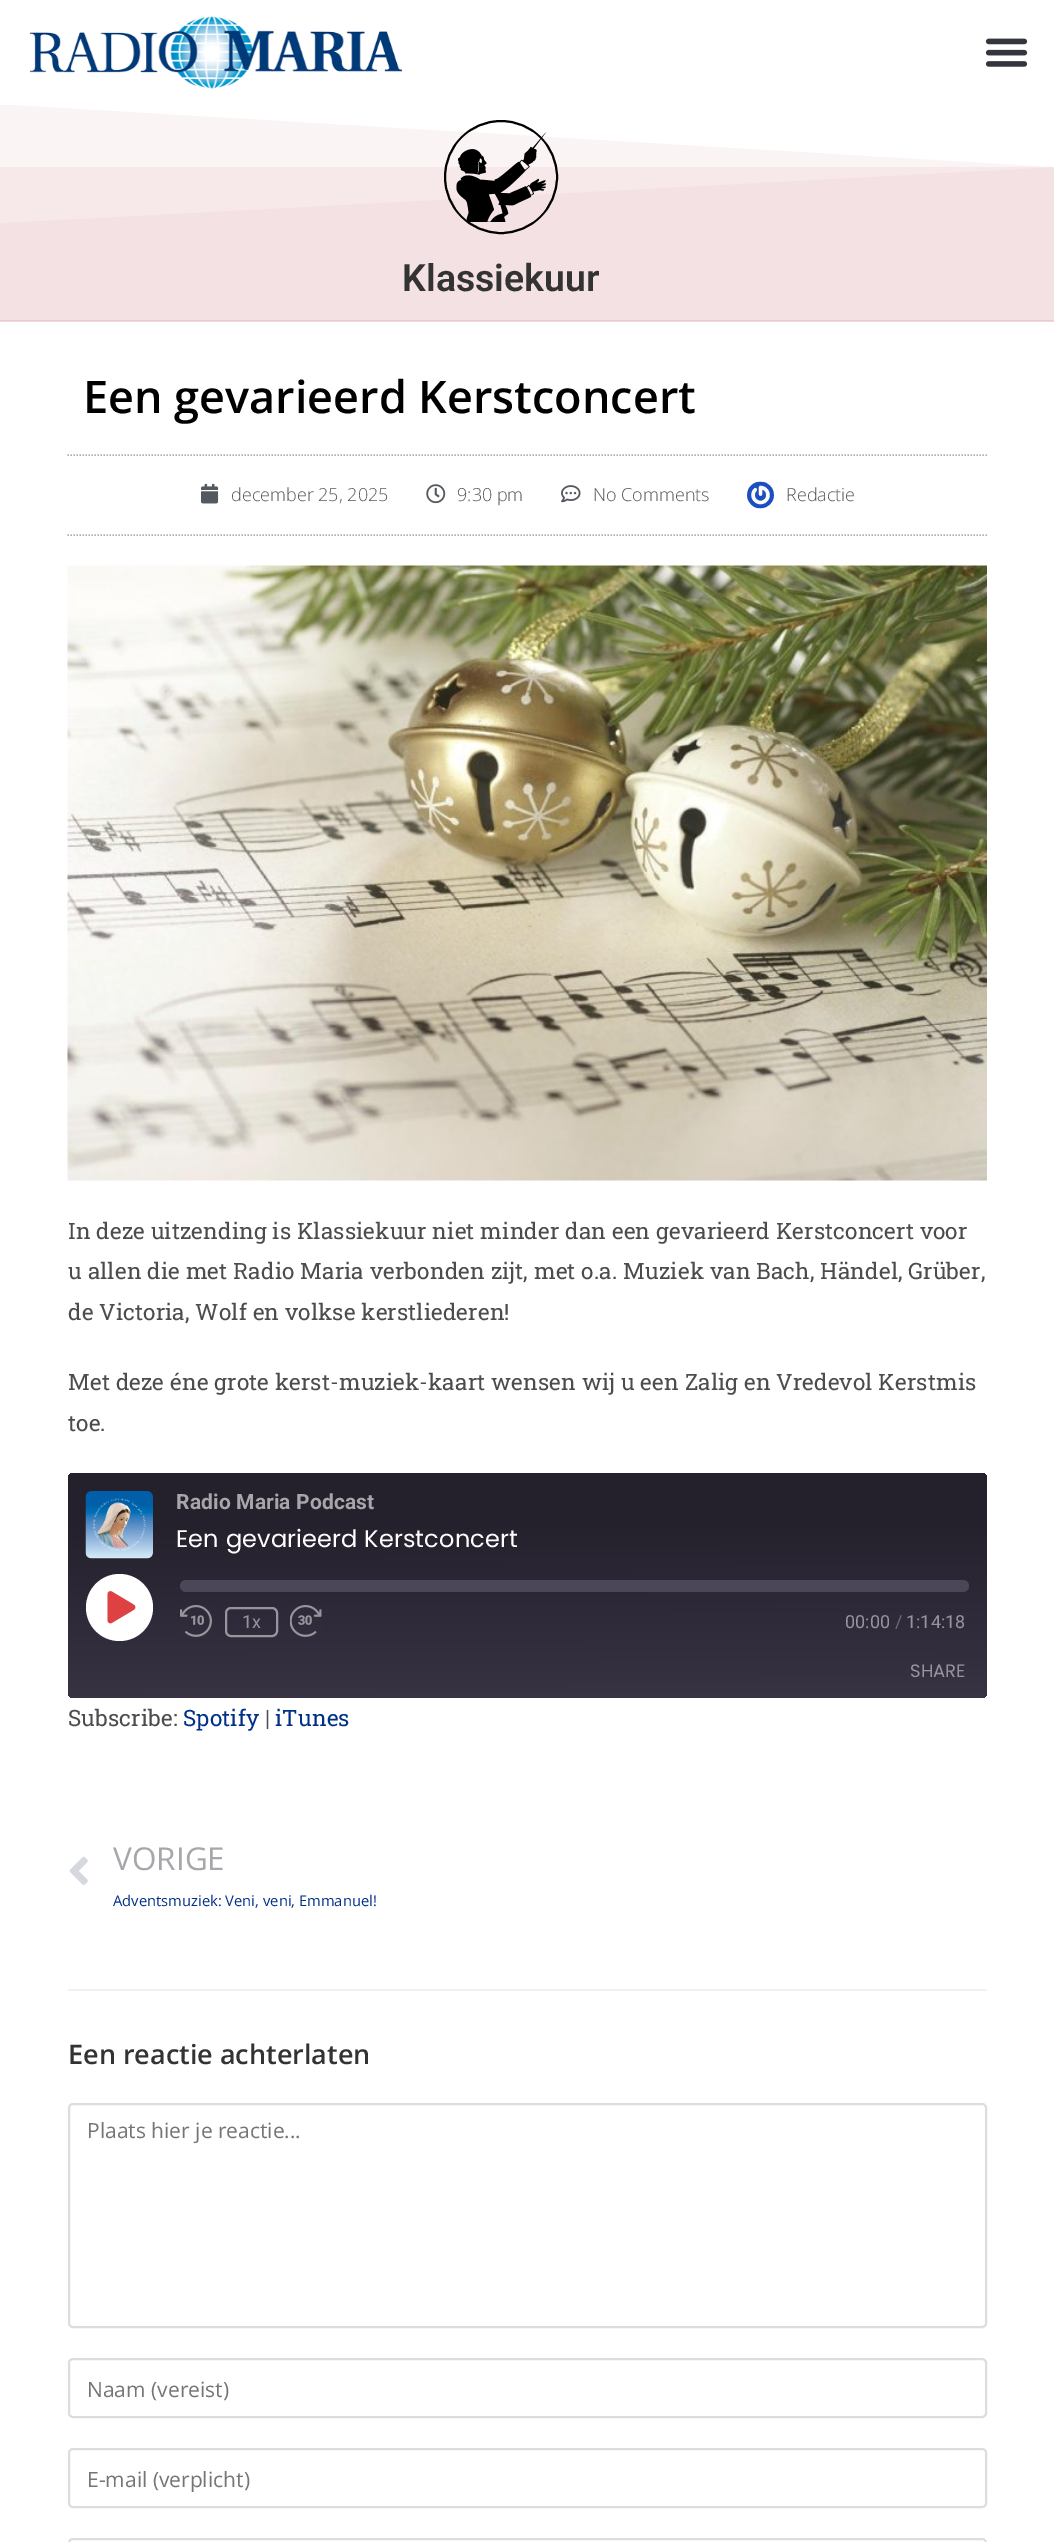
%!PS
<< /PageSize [1054 2542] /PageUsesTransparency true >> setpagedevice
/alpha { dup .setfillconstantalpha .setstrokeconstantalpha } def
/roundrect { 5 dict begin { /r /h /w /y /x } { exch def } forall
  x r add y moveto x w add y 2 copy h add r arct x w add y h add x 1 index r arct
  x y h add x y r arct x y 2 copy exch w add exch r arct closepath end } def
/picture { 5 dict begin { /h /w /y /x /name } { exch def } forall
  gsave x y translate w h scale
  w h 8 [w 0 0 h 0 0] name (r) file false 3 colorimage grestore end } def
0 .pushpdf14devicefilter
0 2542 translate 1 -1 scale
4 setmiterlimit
1 setgray
0 0 1054 2542 rectfill
0.945 0.851 0.863 setrgbcolor
0 321 1054 1 rectfill
(img1.rgb) 30 16 372 73 picture
(img2.rgb) 985 38 43 29 picture
0.957 0.882 0.89 setrgbcolor
0 105 1054 215 rectfill
0.922 0.792 0.808 setrgbcolor
0 320 1054 1 rectfill
1 setgray
newpath 0 104 moveto 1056 104 lineto 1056 167 lineto closepath fill
0.5 alpha
0 105 1053 62 rectfill
0.25 alpha
newpath 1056 104 moveto 0 104 lineto 0 223 lineto 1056 167 lineto closepath fill
1 alpha
0 setgray
2 setlinewidth
newpath 501 177 56 0 360 arc closepath stroke
(img3.rgb) 456 132 90 90 picture
/Roboto-SemiBold [37.5 0 0 -37.5 0 0] selectfont
0.2 setgray
402 291 moveto (Klassiekuur) show
/OpenSans-SemiBold [45 0 0 -45 0 0] selectfont
0 setgray
83 413 moveto (Een gevarieerd Kerstconcert) show
0.686 setgray
1.5 setlinewidth
[1.5 1.5] 0 setdash
newpath 67.5 455 moveto 987 455 lineto stroke
newpath 67.5 535 moveto 987 535 lineto stroke
(img4.rgb) 201 483 18 21 picture
/OpenSans-Light [18 0 0 -18 0 0] selectfont
0.329 0.349 0.373 setrgbcolor
231 501 moveto (december 25, 2025) show
(img5.rgb) 426 484 20 20 picture
457 501 moveto (9:30 pm) show
(img6.rgb) 561 485 20 18 picture
593 501 moveto (No Comments) show
(img7.rgb) 747 481 27 28 picture
786 501 moveto (Redactie) show
(img8.rgb) 67 565 920 616 picture
/RobotoSlab-Regular [22.5 0 0 -22.5 0 0] selectfont
0.298 setgray
68 1239 moveto 0.15 0 (In deze uitzending is Klassiekuur niet minder dan een gevarieerd Kerstconcert voor) ashow
68 1279 moveto 0.15 0 (u allen die met Radio Maria verbonden zijt, met o.a. Muziek van Bach, Händel, Grüber,) ashow
68 1320 moveto 0.15 0 (de Victoria, Wolf en volkse kerstliederen!) ashow
68 1390 moveto 0.15 0 (Met deze éne grote kerst-muziek-kaart wensen wij u een Zalig en Vredevol Kerstmis) ashow
68 1431 moveto 0.15 0 (toe.) ashow
gsave 68 1473 919 225 6 roundrect clip newpath
<< /ShadingType 2 /ColorSpace /DeviceRGB /Coords [528 1701 527 1470] /Extend [true true] /Function << /FunctionType 3 /Domain [0 1] /Functions [<< /FunctionType 2 /Domain [0 1] /C0 [0.22 0.2 0.267] /C1 [0.22 0.2 0.267] /N 1 >> << /FunctionType 2 /Domain [0 1] /C0 [0.22 0.2 0.267] /C1 [0.141 0.129 0.173] /N 1 >> << /FunctionType 2 /Domain [0 1] /C0 [0.141 0.129 0.173] /C1 [0.141 0.129 0.173] /N 1 >>] /Bounds [0.01 0.78] /Encode [0 1 0 1 0 1] >> >> shfill grestore
(img9.rgb) 85 1491 68 68 picture
/Roboto-Bold [21 0 0 -21 0 0] selectfont
0.655 0.651 0.671 setrgbcolor
176 1509 moveto 0.15 0 (Radio Maria Podcast) ashow
/Poppins-Regular [24 0 0 -24 0 0] selectfont
1 setgray
176 1547 moveto 0.15 0 (Een gevarieerd Kerstconcert) ashow
newpath 119.5 1607.5 33.5 0 360 arc closepath fill
(img10.rgb) 107 1591 29 33 picture
0.298 0.275 0.349 setrgbcolor
180 1580 789 12 6 roundrect fill
(img11.rgb) 180 1605 32 32 picture
0.5 alpha
1 setgray
2 setlinewidth
[] 0 setdash
226 1608 51 28 5 roundrect stroke
/Roboto-Regular [18 0 0 -18 0 0] selectfont
1 alpha
0.592 0.584 0.612 setrgbcolor
242 1628 moveto (1x) show
(img12.rgb) 290 1605 32 32 picture
845 1628 moveto (00:00) show
0.431 0.42 0.459 setrgbcolor
895 1628 moveto (/) show
0.592 0.584 0.612 setrgbcolor
906 1628 moveto (1:14:18) show
/Poppins-Regular [18 0 0 -18 0 0] selectfont
910 1677 moveto (SHARE) show
/RobotoSlab-Regular [22.5 0 0 -22.5 0 0] selectfont
0.298 setgray
68 1726 moveto 0.15 0 (Subscribe:) ashow
0 0.192 0.529 setrgbcolor
183 1726 moveto 0.15 0 (Spotify) ashow
0.298 setgray
265 1726 moveto 0.15 0 (|) ashow
0 0.192 0.529 setrgbcolor
275 1726 moveto 0.15 0 (iTunes) ashow
(img13.rgb) 69 1856 19 29 picture
/OpenSans-Regular [31.5 0 0 -31.5 0 0] selectfont
0.655 0.651 0.671 setrgbcolor
113 1870 moveto (VORIGE) show
/OpenSans-Regular [14.75 0 0 -14.75 0 0] selectfont
0 0.192 0.529 setrgbcolor
113 1906 moveto (Adventsmuziek: Veni, veni, Emmanuel!) show
0.945 setgray
68 1989 919 2 rectfill
/OpenSans-SemiBold [27 0 0 -27 0 0] selectfont
0.2 setgray
68 2064 moveto (Een reactie achterlaten) show
0.867 setgray
69 2104 917 223 4 roundrect stroke
/OpenSans-Regular [21 0 0 -21 0 0] selectfont
0.459 setgray
87 2138 moveto (Plaats hier je reactie...) show
0.867 setgray
69 2359 917 58 4 roundrect stroke
0.459 setgray
87 2397 moveto (Naam \(vereist\)) show
0.867 setgray
69 2449 917 58 4 roundrect stroke
0.459 setgray
87 2487 moveto (E-mail \(verplicht\)) show
0.867 setgray
69 2539 917 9 4 roundrect stroke
.poppdf14devicefilter showpage
